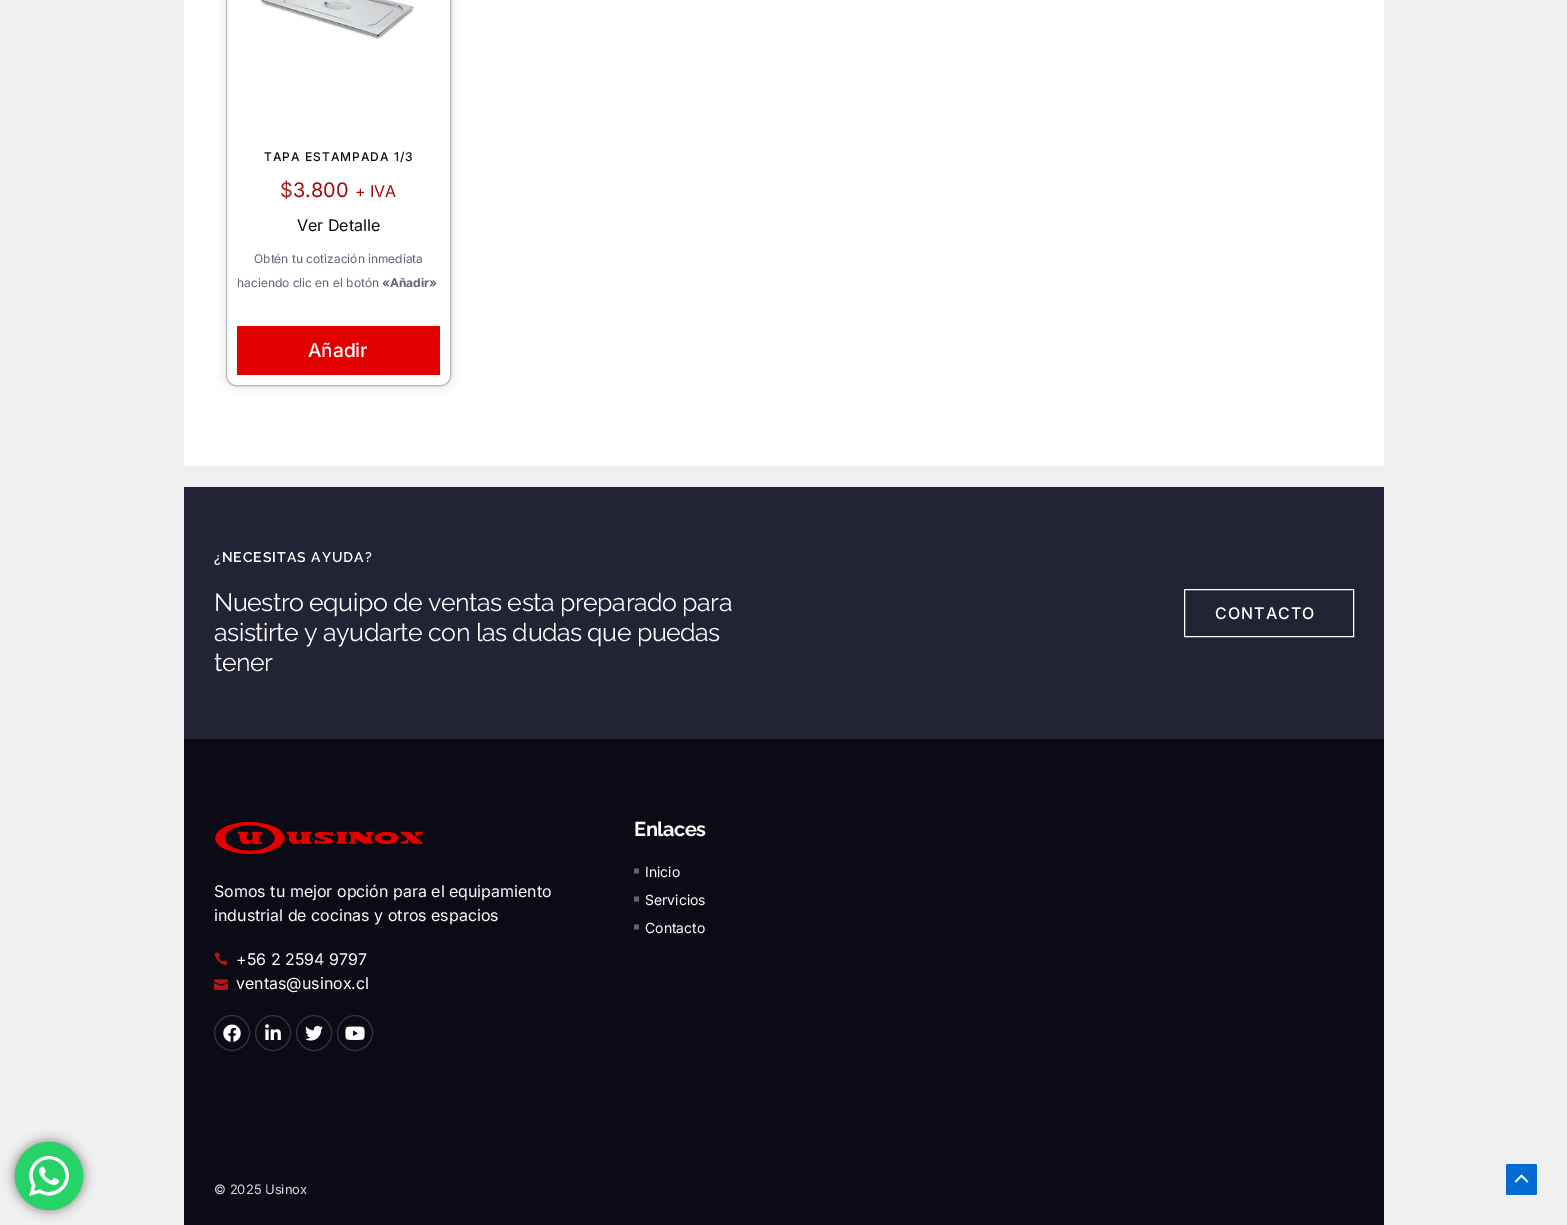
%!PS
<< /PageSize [1567 1225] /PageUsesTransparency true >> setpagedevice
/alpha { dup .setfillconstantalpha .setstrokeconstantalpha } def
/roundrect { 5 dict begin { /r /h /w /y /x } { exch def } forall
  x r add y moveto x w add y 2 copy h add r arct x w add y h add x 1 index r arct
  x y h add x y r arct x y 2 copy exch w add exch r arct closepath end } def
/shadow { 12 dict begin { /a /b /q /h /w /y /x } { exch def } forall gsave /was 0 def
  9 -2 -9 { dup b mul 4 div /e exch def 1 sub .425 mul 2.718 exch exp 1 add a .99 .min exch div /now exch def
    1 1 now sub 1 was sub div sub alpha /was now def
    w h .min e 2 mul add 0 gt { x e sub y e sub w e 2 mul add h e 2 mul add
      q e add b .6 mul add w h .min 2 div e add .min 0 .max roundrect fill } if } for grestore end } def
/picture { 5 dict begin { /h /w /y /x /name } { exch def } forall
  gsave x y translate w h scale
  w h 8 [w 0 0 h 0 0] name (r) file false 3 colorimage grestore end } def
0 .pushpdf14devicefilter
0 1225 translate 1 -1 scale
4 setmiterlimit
0.941 setgray
0 0 1567 1225 rectfill
0 setgray
15 1142 68 68 34 5.5 0.5 shadow
0.145 0.827 0.4 setrgbcolor
newpath 49 1176 34 0 360 arc closepath fill
(img1.rgb) 29 1156 40 40 picture
1 setgray
184 0 1200 466 rectfill
0 setgray
226 -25 225 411 10 5 0.16 shadow
1 setgray
226 -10 225 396 10 roundrect fill
0.32 alpha
0.133 0.137 0.204 setrgbcolor
226.5 -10.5 224 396 9.5 roundrect stroke
1 alpha
(img2.rgb) 260 0 155 39 picture
/Inter-Medium [12 0 0 -12 0 0] selectfont
0.039 0.043 0.078 setrgbcolor
264 161 moveto 1 0 (TAPA ESTAMPADA 1/3) ashow
/Inter-Regular [20 0 0 -20 0 0] selectfont
0.635 0.141 0.141 setrgbcolor
280 197 moveto ($) show
0.635 0.035 0.035 setrgbcolor
293 197 moveto (3.800) show
/Inter-Regular [16 0 0 -16 0 0] selectfont
355 197 moveto (+ IVA) show
0.039 0.043 0.078 setrgbcolor
297 231 moveto (Ver Detalle) show
/Inter-Regular [12 0 0 -12 0 0] selectfont
0.38 0.388 0.475 setrgbcolor
254 263 moveto (Obtén tu cotización inmediata) show
237 287 moveto (haciendo clic en el botón) show
/Inter-Bold [12 0 0 -12 0 0] selectfont
382 287 moveto («Añadir») show
0.89 0 0.004 setrgbcolor
237 326 203 49 rectfill
/Inter-Medium [19 0 0 -19 0 0] selectfont
1 setgray
308 357 moveto (Añadir) show
0.133 0.137 0.204 setrgbcolor
184 487 1200 252 rectfill
/Raleway-SemiBold [14 0 0 -14 0 0] selectfont
1 setgray
214 562 moveto 1 0 (¿NECESITAS AYUDA?) ashow
/Raleway-Regular [25 0 0 -25 0 0] selectfont
214 611 moveto -0.5 0 (Nuestro equipo de ventas esta preparado para) ashow
214 641 moveto -0.5 0 (asistirte y ayudarte con las dudas que puedas) ashow
214 671 moveto -0.5 0 (tener) ashow
1184.5 589.5 169 47 rectstroke
/Inter-Medium [16 0 0 -16 0 0] selectfont
1215 619 moveto 1 0 (CONTACTO) ashow
0.039 0.043 0.078 setrgbcolor
184 739 1200 486 rectfill
(img3.rgb) 214 821 210 34 picture
/Inter-Regular [16 0 0 -16 0 0] selectfont
1 setgray
214 897 moveto (Somos tu mejor opción para el equipamiento) show
214 921 moveto (industrial de cocinas y otros espacios) show
(img4.rgb) 214 952 14 14 picture
236 965 moveto (+56 2 2594 9797) show
(img5.rgb) 214 979 14 11 picture
236 989 moveto (ventas@usinox.cl) show
0.204 0.204 0.235 setrgbcolor
newpath 232 1033 17.5 0 360 arc closepath stroke
(img6.rgb) 223 1024 18 18 picture
newpath 273 1033 17.5 0 360 arc closepath stroke
(img7.rgb) 265 1024 16 16 picture
newpath 314 1033 17.5 0 360 arc closepath stroke
(img8.rgb) 305 1025 18 16 picture
newpath 355 1033 17.5 0 360 arc closepath stroke
(img9.rgb) 345 1026 20 14 picture
/Raleway-Bold [20 0 0 -20 0 0] selectfont
1 setgray
634 836 moveto -0.5 0 (Enlaces) ashow
0.38 0.388 0.475 setrgbcolor
newpath 639 873.5 moveto 634 873.5 lineto 634 868.5 lineto 639 868.5 lineto closepath fill
/Inter-Regular [14 0 0 -14 0 0] selectfont
1 setgray
645 877 moveto (Inicio) show
0.38 0.388 0.475 setrgbcolor
newpath 639 901.5 moveto 634 901.5 lineto 634 896.5 lineto 639 896.5 lineto closepath fill
1 setgray
645 905 moveto (Servicios) show
0.38 0.388 0.475 setrgbcolor
newpath 639 929.5 moveto 634 929.5 lineto 634 924.5 lineto 639 924.5 lineto closepath fill
1 setgray
645 933 moveto (Contacto) show
/Inter-Regular [13 0 0 -13 0 0] selectfont
0.863 0.863 0.871 setrgbcolor
214 1194 moveto (© 2025 Usinox) show
0.016 0.42 0.824 setrgbcolor
1506 1164 31 31 2 roundrect fill
(img10.rgb) 1514 1174 15 9 picture
.poppdf14devicefilter showpage
